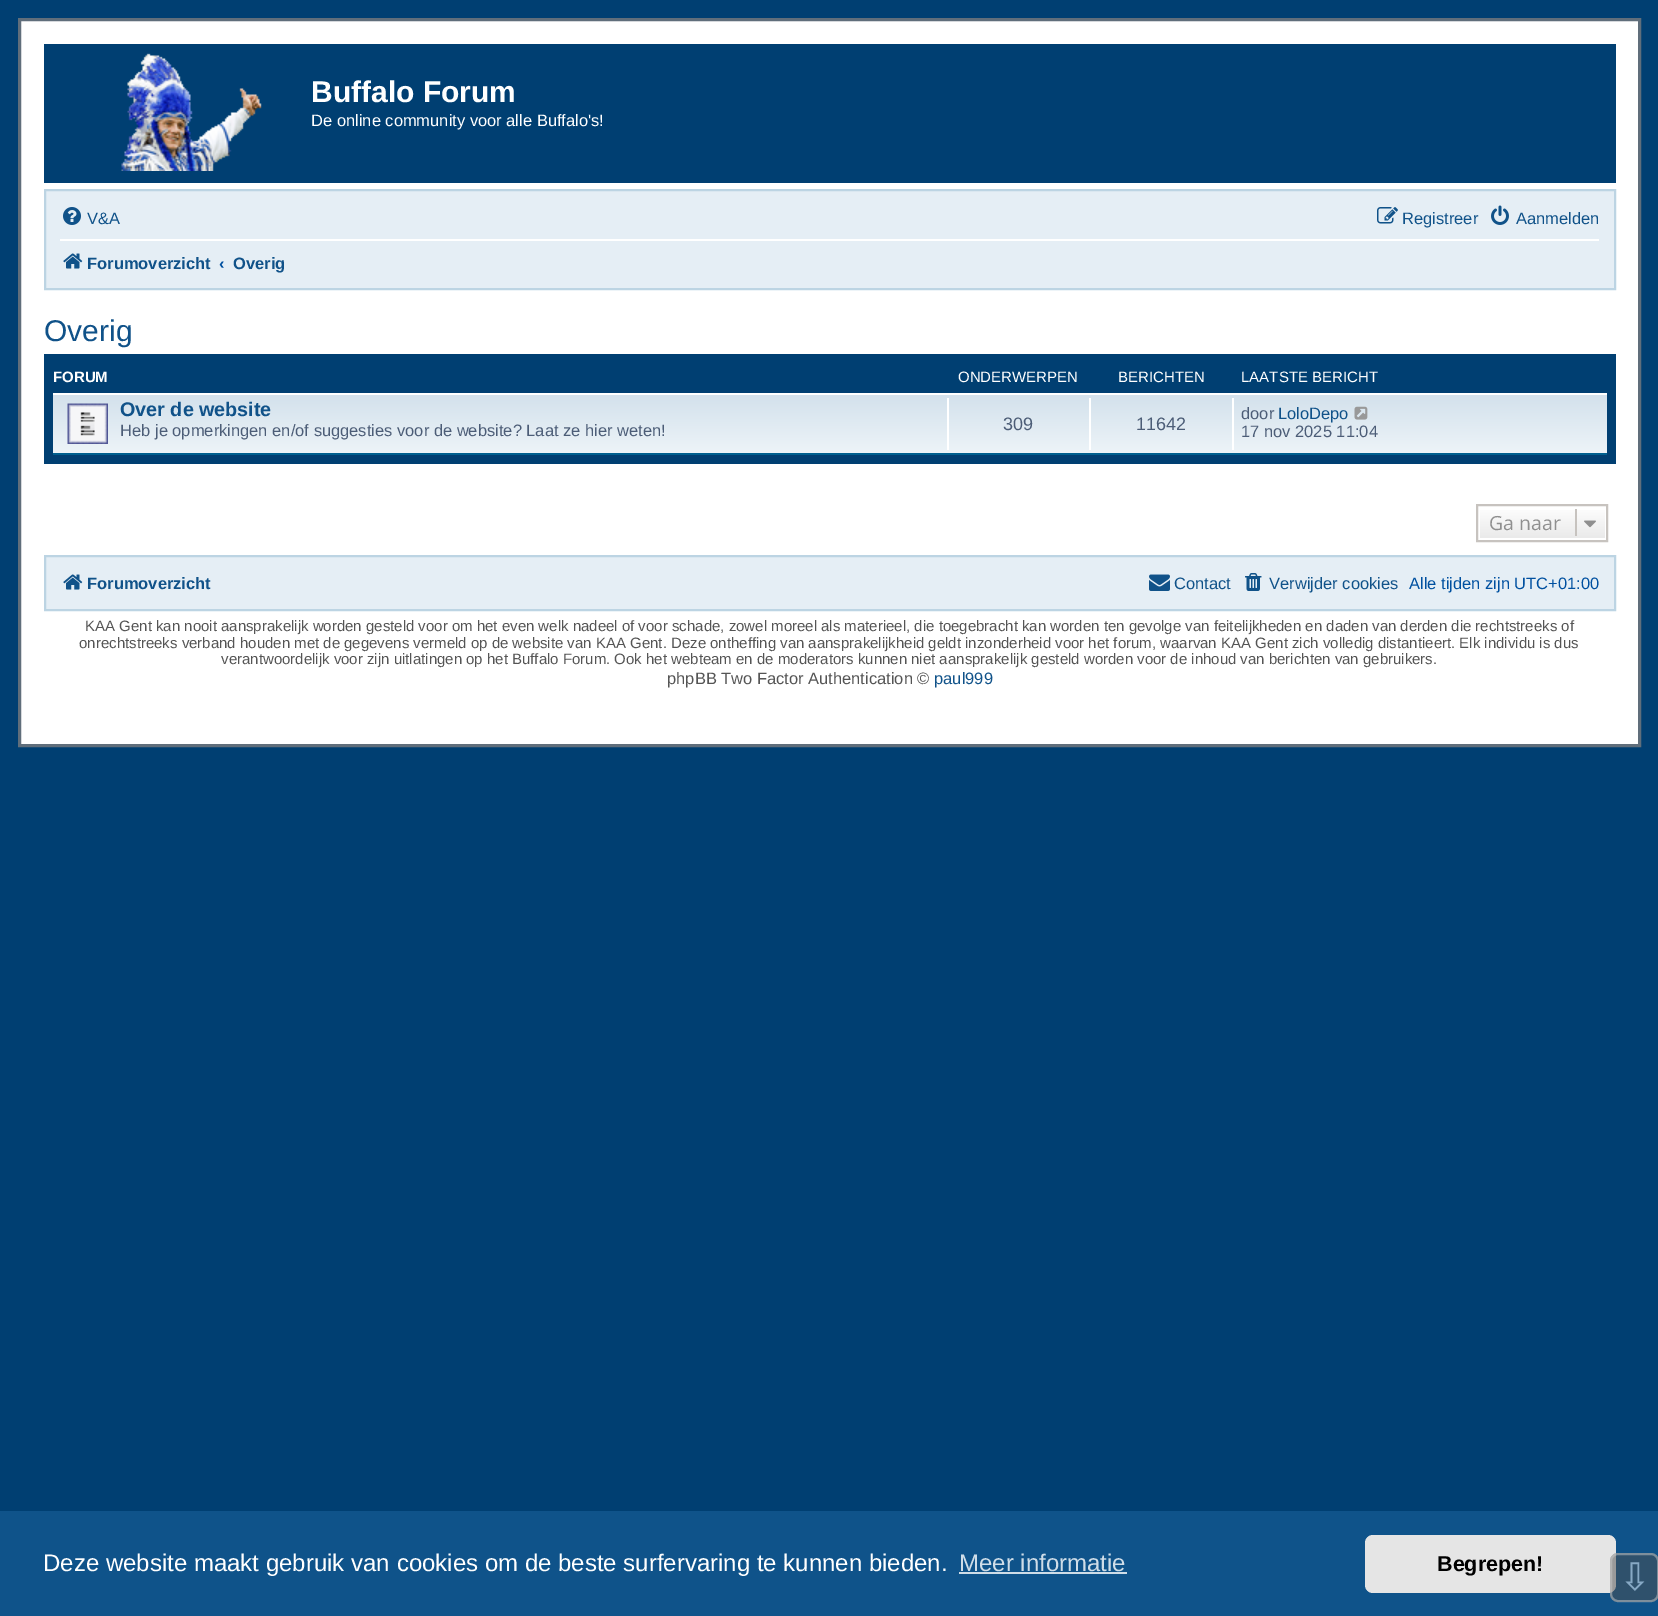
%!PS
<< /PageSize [1658 1616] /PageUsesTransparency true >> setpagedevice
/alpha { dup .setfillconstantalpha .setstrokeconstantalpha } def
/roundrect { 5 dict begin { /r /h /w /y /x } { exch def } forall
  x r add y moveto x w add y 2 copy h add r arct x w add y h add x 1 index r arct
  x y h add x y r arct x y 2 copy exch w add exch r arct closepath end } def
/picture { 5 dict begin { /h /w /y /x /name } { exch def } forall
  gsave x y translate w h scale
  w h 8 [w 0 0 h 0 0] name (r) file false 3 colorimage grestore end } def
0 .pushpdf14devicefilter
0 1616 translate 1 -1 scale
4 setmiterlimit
0 0.247 0.447 setrgbcolor
0 0 1658 1616 rectfill
1 setgray
newpath 19.5 19.5 moveto 1639.5 19.5 lineto 1639.5 745.5 lineto 19.5 745.5 lineto closepath gsave fill grestore
0.376 0.431 0.482 setrgbcolor
3 setlinewidth
stroke
0 0.247 0.447 setrgbcolor
44 44 1572 139 rectfill
(img1.rgb) 121 53 141 118 picture
/LiberationSans-Bold [30 0 0 -30 0 0] selectfont
1 setgray
311 102 moveto (Buffalo Forum) show
/LiberationSans-Regular [16.5 0 0 -16.5 0 0] selectfont
311 126 moveto (De online community voor alle Buffalo's!) show
0.898 0.933 0.961 setrgbcolor
newpath 45 190 moveto 1615 190 lineto 1615 289 lineto 45 289 lineto closepath gsave fill grestore
0.737 0.831 0.89 setrgbcolor
2 setlinewidth
stroke
(img2.rgb) 63 207 18 18 picture
0.063 0.322 0.537 setrgbcolor
87 224 moveto (V&A) show
(img3.rgb) 1377 207 21 17 picture
1402 224 moveto (Registreer) show
(img4.rgb) 1491 205 18 20 picture
1516 224 moveto (Aanmelden) show
1 setgray
60 239 1539 2 rectfill
(img5.rgb) 63 253 20 16 picture
/LiberationSans-Bold [16.5 0 0 -16.5 0 0] selectfont
0.063 0.322 0.537 setrgbcolor
87 269 moveto (Forumoverzicht) show
0 0.314 0.627 setrgbcolor
219 269 moveto (‹) show
0.063 0.322 0.537 setrgbcolor
233 269 moveto (Overig) show
/LiberationSans-Regular [30 0 0 -30 0 0] selectfont
44 341 moveto (Overig) show
0 0.247 0.447 setrgbcolor
44 354 1572 110 rectfill
/LiberationSans-Bold [15 0 0 -15 0 0] selectfont
1 setgray
53 382 moveto (FORUM) show
/LiberationSans-Regular [15 0 0 -15 0 0] selectfont
958 382 moveto (ONDERWERPEN) show
1118 382 moveto (BERICHTEN) show
1241 382 moveto (LAATSTE BERICHT) show
gsave newpath 53 395 moveto 1607 395 lineto 1607 453 lineto 53 453 lineto closepath clip newpath
<< /ShadingType 2 /ColorSpace /DeviceRGB /Coords [830 393 830 455] /Extend [true true] /Function << /FunctionType 2 /Domain [0 1] /C0 [0.824 0.878 0.922] /C1 [0.933 0.961 0.976] /N 1 >> >> shfill grestore
53 393 1554 2 rectfill
0 0.376 0.561 setrgbcolor
53 453 1554 2 rectfill
(img6.rgb) 67 403 41 41 picture
/LiberationSans-Bold [19.75 0 0 -19.75 0 0] selectfont
0.063 0.322 0.537 setrgbcolor
120 416 moveto (Over de website) show
/LiberationSans-Regular [16.5 0 0 -16.5 0 0] selectfont
0.298 0.365 0.467 setrgbcolor
120 436 moveto (Heb je opmerkingen en/of suggesties voor de website? Laat ze hier weten!) show
1 setgray
947 398 2 52 rectfill
/LiberationSans-Regular [18 0 0 -18 0 0] selectfont
0.298 0.365 0.467 setrgbcolor
1003 430 moveto (309) show
1 setgray
1089 398 2 52 rectfill
0.298 0.365 0.467 setrgbcolor
1136 430 moveto (11642) show
1 setgray
1232 398 2 52 rectfill
/LiberationSans-Regular [16.5 0 0 -16.5 0 0] selectfont
0.298 0.365 0.467 setrgbcolor
1241 419 moveto (door) show
0.063 0.322 0.537 setrgbcolor
1278 419 moveto (LoloDepo) show
(img7.rgb) 1354 406 14 14 picture
0.298 0.365 0.467 setrgbcolor
1241 437 moveto (17 nov 2025 11:04) show
gsave newpath 1480 510 moveto 1605 510 lineto 1605 538 lineto 1480 538 lineto closepath clip newpath
<< /ShadingType 2 /ColorSpace /DeviceRGB /Coords [1542 506 1542 540] /Extend [true true] /Function << /FunctionType 2 /Domain [0 1] /C0 [1 1 1] /C1 [0.914 0.914 0.914] /N 1 >> >> shfill grestore
0.78 0.765 0.749 setrgbcolor
1477 505 130 36 rectstroke
/OpenSans-Regular [19.5 0 0 -19.5 0 0] selectfont
0.561 setgray
1489 530 moveto (Ga naar) show
0.78 0.765 0.749 setrgbcolor
1575 509 2 27 rectfill
(img8.rgb) 1584 520 12 8 picture
0.898 0.933 0.961 setrgbcolor
newpath 45 556 moveto 1615 556 lineto 1615 610 lineto 45 610 lineto closepath gsave fill grestore
0.737 0.831 0.89 setrgbcolor
stroke
(img5.rgb) 63 574 20 16 picture
/LiberationSans-Bold [16.5 0 0 -16.5 0 0] selectfont
0.063 0.322 0.537 setrgbcolor
87 589 moveto (Forumoverzicht) show
(img9.rgb) 1149 574 21 17 picture
/LiberationSans-Regular [16.5 0 0 -16.5 0 0] selectfont
1174 589 moveto (Contact) show
(img10.rgb) 1245 573 17 18 picture
1269 589 moveto (Verwijder cookies) show
0 0.314 0.627 setrgbcolor
1409 589 moveto (Alle tijden zijn UTC+01:00) show
/LiberationSans-Regular [15 0 0 -15 0 0] selectfont
0.333 setgray
85 631 moveto (KAA Gent kan nooit aansprakelijk worden gesteld voor om het even welk nadeel of voor schade, zowel moreel als materieel, die toegebracht kan worden ten gevolge van feitelijkheden en daden van derden die rechtstreeks of) show
79 648 moveto (onrechtstreeks verband houden met de gegevens vermeld op de website van KAA Gent. Deze ontheffing van aansprakelijkheid geldt inzonderheid voor het forum, waarvan KAA Gent zich volledig distantieert. Elk individu is dus) show
221 664 moveto (verantwoordelijk voor zijn uitlatingen op het Buffalo Forum. Ook het webteam en de moderators kunnen niet aansprakelijk gesteld worden voor de inhoud van berichten van gebruikers.) show
/LiberationSans-Regular [16.5 0 0 -16.5 0 0] selectfont
667 684 moveto (phpBB Two Factor Authentication ©) show
0.063 0.322 0.537 setrgbcolor
934 684 moveto (paul999) show
0.059 0.325 0.541 setrgbcolor
0 1511 1658 105 rectfill
/LiberationSans-Regular [24 0 0 -24 0 0] selectfont
1 setgray
43 1571 moveto (Deze website maakt gebruik van cookies om de beste surfervaring te kunnen bieden.) show
0.812 0.867 0.91 setrgbcolor
959 1571 moveto (Meer informatie) show
959 1572 168 2 rectfill
0.898 setgray
1365 1535 251 58 8 roundrect fill
/LiberationSans-Bold [21.5 0 0 -21.5 0 0] selectfont
0 setgray
1437 1571 moveto (Begrepen!) show
0.5 alpha
0.31 setgray
1610 1553 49 49 8 roundrect fill
0.8 setgray
1611 1554 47 47 7 roundrect stroke
/DejaVuSans-Regular [38 0 0 -38 0 0] selectfont
1 alpha
0.529 0.663 0.773 setrgbcolor
1619 1590 moveto (⇩) show
.poppdf14devicefilter showpage
